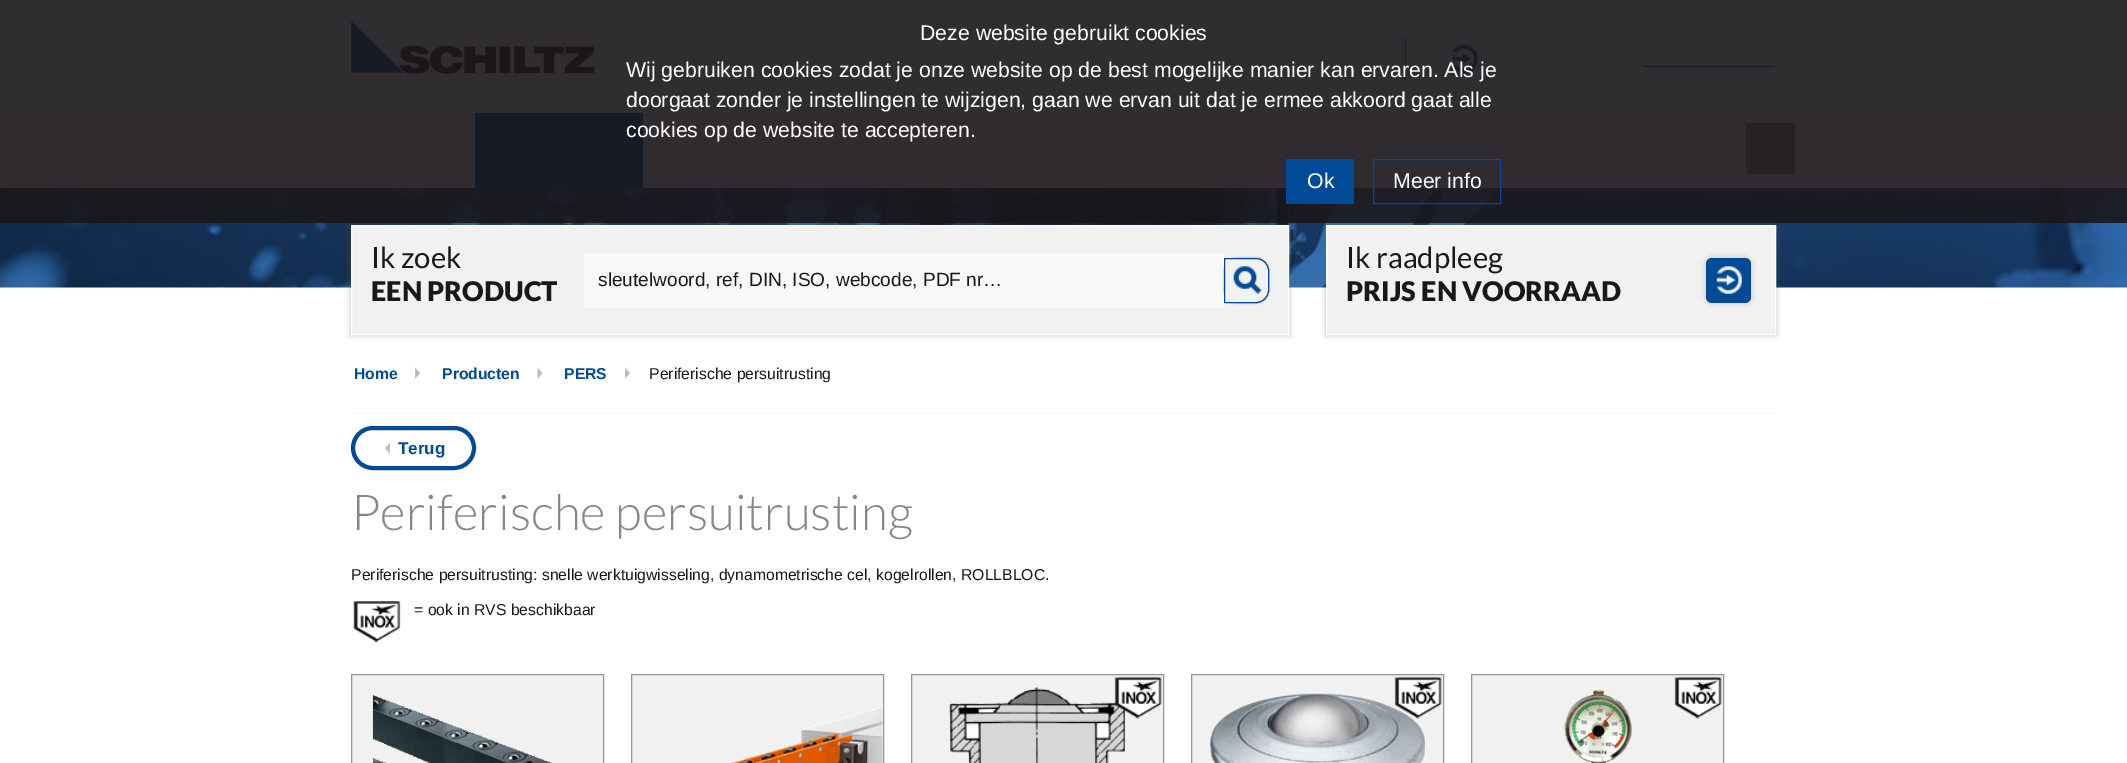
%!PS
<< /PageSize [2127 763] /PageUsesTransparency true >> setpagedevice
/alpha { dup .setfillconstantalpha .setstrokeconstantalpha } def
/roundrect { 5 dict begin { /r /h /w /y /x } { exch def } forall
  x r add y moveto x w add y 2 copy h add r arct x w add y h add x 1 index r arct
  x y h add x y r arct x y 2 copy exch w add exch r arct closepath end } def
/shadow { 12 dict begin { /a /b /q /h /w /y /x } { exch def } forall gsave /was 0 def
  9 -2 -9 { dup b mul 4 div /e exch def 1 sub .425 mul 2.718 exch exp 1 add a .99 .min exch div /now exch def
    1 1 now sub 1 was sub div sub alpha /was now def
    w h .min e 2 mul add 0 gt { x e sub y e sub w e 2 mul add h e 2 mul add
      q e add b .6 mul add w h .min 2 div e add .min 0 .max roundrect fill } if } for grestore end } def
/picture { 5 dict begin { /h /w /y /x /name } { exch def } forall
  gsave x y translate w h scale
  w h 8 [w 0 0 h 0 0] name (r) file false 3 colorimage grestore end } def
0 .pushpdf14devicefilter
0 763 translate 1 -1 scale
4 setmiterlimit
1 setgray
0 0 2127 763 rectfill
(img1.rgb) 351 21 244 53 picture
0 0.29 0.592 setrgbcolor
1405 38 1 43 rectfill
(img2.rgb) 1452 44 26 29 picture
1644 66 130 1 rectfill
(img3.rgb) 0 188 2127 100 picture
0.357 setgray
4 118 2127 75 0 3 0.4 shadow
0.945 setgray
0 113 2127 75 rectfill
0 0.29 0.592 setrgbcolor
475 113 168 75 rectfill
0.525 0.529 0.537 setrgbcolor
1746 123 49 51 rectfill
0.357 setgray
351 225 938 110 0 3 0.4 shadow
1326 225 450 110 0 3 0.4 shadow
0.9 alpha
0.102 0.086 0.102 setrgbcolor
0 0 2127 223 rectfill
/LiberationSans-Regular [21.25 0 0 -21.25 0 0] selectfont
1 alpha
1 setgray
920 40 moveto (Deze website gebruikt cookies) show
626 77 moveto (Wij gebruiken cookies zodat je onze website op de best mogelijke manier kan ervaren. Als je) show
626 107 moveto (doorgaat zonder je instellingen te wijzigen, gaan we ervan uit dat je ermee akkoord gaat alle) show
626 137 moveto (cookies op de website te accepteren.) show
0 0.29 0.592 setrgbcolor
1286 159 68 45 rectfill
1 setgray
1307 188 moveto (Ok) show
0 0.29 0.592 setrgbcolor
1373.5 159.5 127 44 rectstroke
1 setgray
1393 188 moveto (Meer info) show
0.945 setgray
newpath 351.5 225.5 moveto 1288.5 225.5 lineto 1288.5 334.5 lineto 351.5 334.5 lineto closepath gsave fill grestore
1 setgray
stroke
/Lato-Regular [29.25 0 0 -29.25 0 0] selectfont
0.102 0.09 0.106 setrgbcolor
371 268 moveto (Ik zoek) show
/Lato-Black [27 0 0 -27 0 0] selectfont
371 301 moveto (EEN PRODUCT) show
0.973 setgray
584 253 640 55 rectfill
/LiberationSans-Regular [19.1 0 0 -19.1 0 0] selectfont
0.102 0.09 0.106 setrgbcolor
598 286 moveto (sleutelwoord, ref, DIN, ISO, webcode, PDF nr…) show
gsave
newpath 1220 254 moveto 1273 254 lineto 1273 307 lineto 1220 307 lineto closepath 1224 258 moveto 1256 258 lineto 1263 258 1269 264 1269 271 curveto 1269 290 lineto 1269 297 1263 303 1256 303 curveto 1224 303 lineto closepath eoclip newpath
0 setgray
1224 258 45 45 13 1 0.4 shadow
grestore
(img4.rgb) 1233 266 29 28 picture
0 0.29 0.592 setrgbcolor
newpath 1224.5 258.5 moveto 1256 258.5 lineto 1263 258.5 1268.5 264 1268.5 271 curveto 1268.5 290 lineto 1268.5 297 1263 302.5 1256 302.5 curveto 1224.5 302.5 lineto closepath stroke
0.945 setgray
newpath 1326.5 225.5 moveto 1775.5 225.5 lineto 1775.5 334.5 lineto 1326.5 334.5 lineto closepath gsave fill grestore
1 setgray
stroke
/Lato-Regular [29.25 0 0 -29.25 0 0] selectfont
0.102 0.09 0.106 setrgbcolor
1346 268 moveto (Ik raadpleeg) show
/Lato-Black [27 0 0 -27 0 0] selectfont
1346 301 moveto (PRIJS EN VOORRAAD) show
0 setgray
1706 258 45 45 6 3 0.2 shadow
0 0.29 0.592 setrgbcolor
1706 258 45 45 6 roundrect fill
(img5.rgb) 1716 266 26 28 picture
0.973 setgray
351 413 1425 1 rectfill
/LiberationSans-Bold [15.75 0 0 -15.75 0 0] selectfont
0 0.29 0.592 setrgbcolor
354 379 moveto (Home) show
(img6.rgb) 415 367 6 12 picture
442 379 moveto (Producten) show
(img7.rgb) 537 367 6 12 picture
564 379 moveto (PERS) show
(img8.rgb) 625 367 6 12 picture
/LiberationSans-Regular [15.75 0 0 -15.75 0 0] selectfont
0.102 0.09 0.106 setrgbcolor
649 379 moveto (Periferische persuitrusting) show
0 0.29 0.592 setrgbcolor
4 setlinewidth
353 428 121 40 20 roundrect stroke
(img9.rgb) 384 442 6 12 picture
/LiberationSans-Bold [17 0 0 -17 0 0] selectfont
398 454 moveto (Terug) show
/Lato-Light [49.5 0 0 -49.5 0 0] selectfont
0.525 0.529 0.537 setrgbcolor
351 530 moveto (Periferische persuitrusting) show
/LiberationSans-Regular [15.75 0 0 -15.75 0 0] selectfont
0.102 0.09 0.106 setrgbcolor
351 580 moveto (Periferische persuitrusting: snelle werktuigwisseling, dynamometrische cel, kogelrollen, ROLLBLOC.) show
(img10.rgb) 353 601 48 42 picture
414 615 moveto (= ook in RVS beschikbaar) show
0.945 setgray
newpath 351.5 674.5 moveto 603.5 674.5 lineto 603.5 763.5 lineto 351.5 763.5 lineto closepath gsave fill grestore
0.584 setgray
1 setlinewidth
stroke
(img11.rgb) 372 695 180 68 picture
0.945 setgray
newpath 631.5 674.5 moveto 883.5 674.5 lineto 883.5 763.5 lineto 631.5 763.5 lineto closepath gsave fill grestore
0.584 setgray
stroke
(img12.rgb) 729 706 154 57 picture
0.945 setgray
newpath 911.5 674.5 moveto 1163.5 674.5 lineto 1163.5 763.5 lineto 911.5 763.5 lineto closepath gsave fill grestore
0.584 setgray
stroke
(img13.rgb) 949 687 176 76 picture
(img14.rgb) 1114 677 48 42 picture
0.945 setgray
newpath 1191.5 674.5 moveto 1443.5 674.5 lineto 1443.5 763.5 lineto 1191.5 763.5 lineto closepath gsave fill grestore
0.584 setgray
stroke
(img16.rgb) 1209 692 217 71 picture
(img15.rgb) 1394 677 48 42 picture
0.945 setgray
newpath 1471.5 674.5 moveto 1723.5 674.5 lineto 1723.5 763.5 lineto 1471.5 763.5 lineto closepath gsave fill grestore
0.584 setgray
stroke
(img17.rgb) 1564 690 68 73 picture
(img18.rgb) 1674 677 48 42 picture
.poppdf14devicefilter showpage
